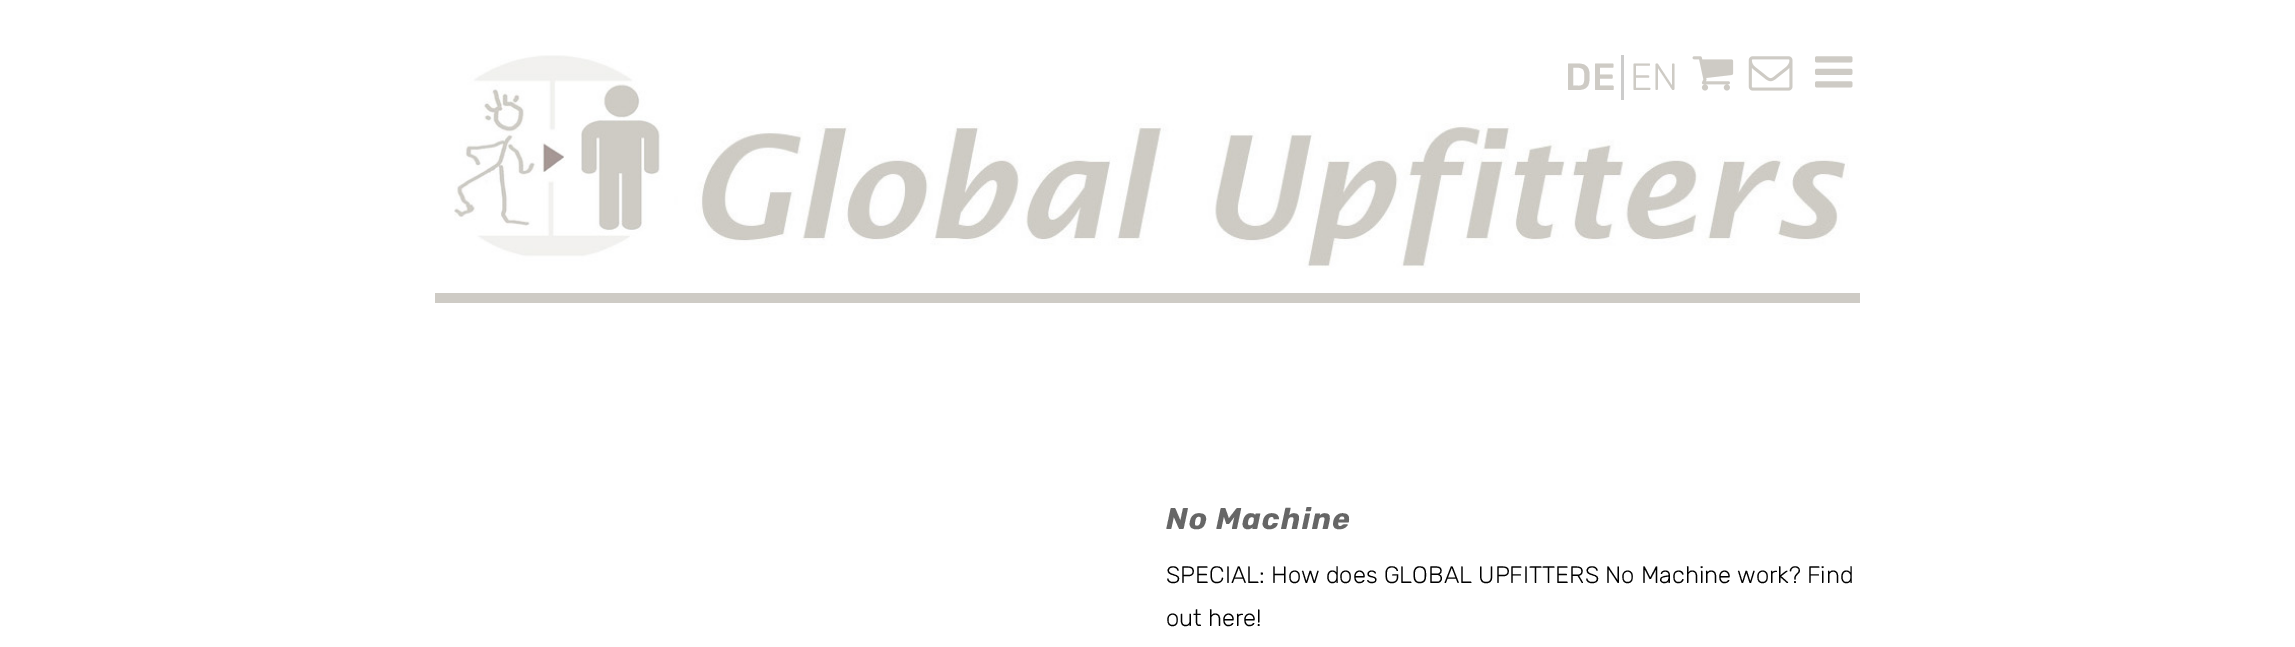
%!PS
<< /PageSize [2295 647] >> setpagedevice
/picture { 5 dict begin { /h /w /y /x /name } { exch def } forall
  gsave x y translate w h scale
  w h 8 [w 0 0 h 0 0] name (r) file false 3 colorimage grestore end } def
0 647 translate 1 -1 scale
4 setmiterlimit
1 setgray
0 0 2295 647 rectfill
0.808 0.796 0.773 setrgbcolor
435 293 1425 10 rectfill
(img1.rgb) 454 55 1395 213 picture
/Rubik-Medium [38 0 0 -38 0 0] selectfont
1565 90 moveto (DE) show
0.8 setgray
1621 55 3 45 rectfill
/Rubik-Light [38 0 0 -38 0 0] selectfont
0.808 0.796 0.773 setrgbcolor
1630 90 moveto (EN) show
(img2.rgb) 1692 56 42 35 picture
(img3.rgb) 1748 56 45 35 picture
(img4.rgb) 1815 56 38 32 picture
/Rubik-BoldItalic [30 0 0 -30 0 0] selectfont
0.4 setgray
1166 529 moveto 1.25 0 (No Machine) ashow
/Rubik-Light [23.75 0 0 -23.75 0 0] selectfont
0 setgray
1166 583 moveto (SPECIAL: How does GLOBAL UPFITTERS No Machine work? Find) show
1166 626 moveto (out here!) show
showpage
